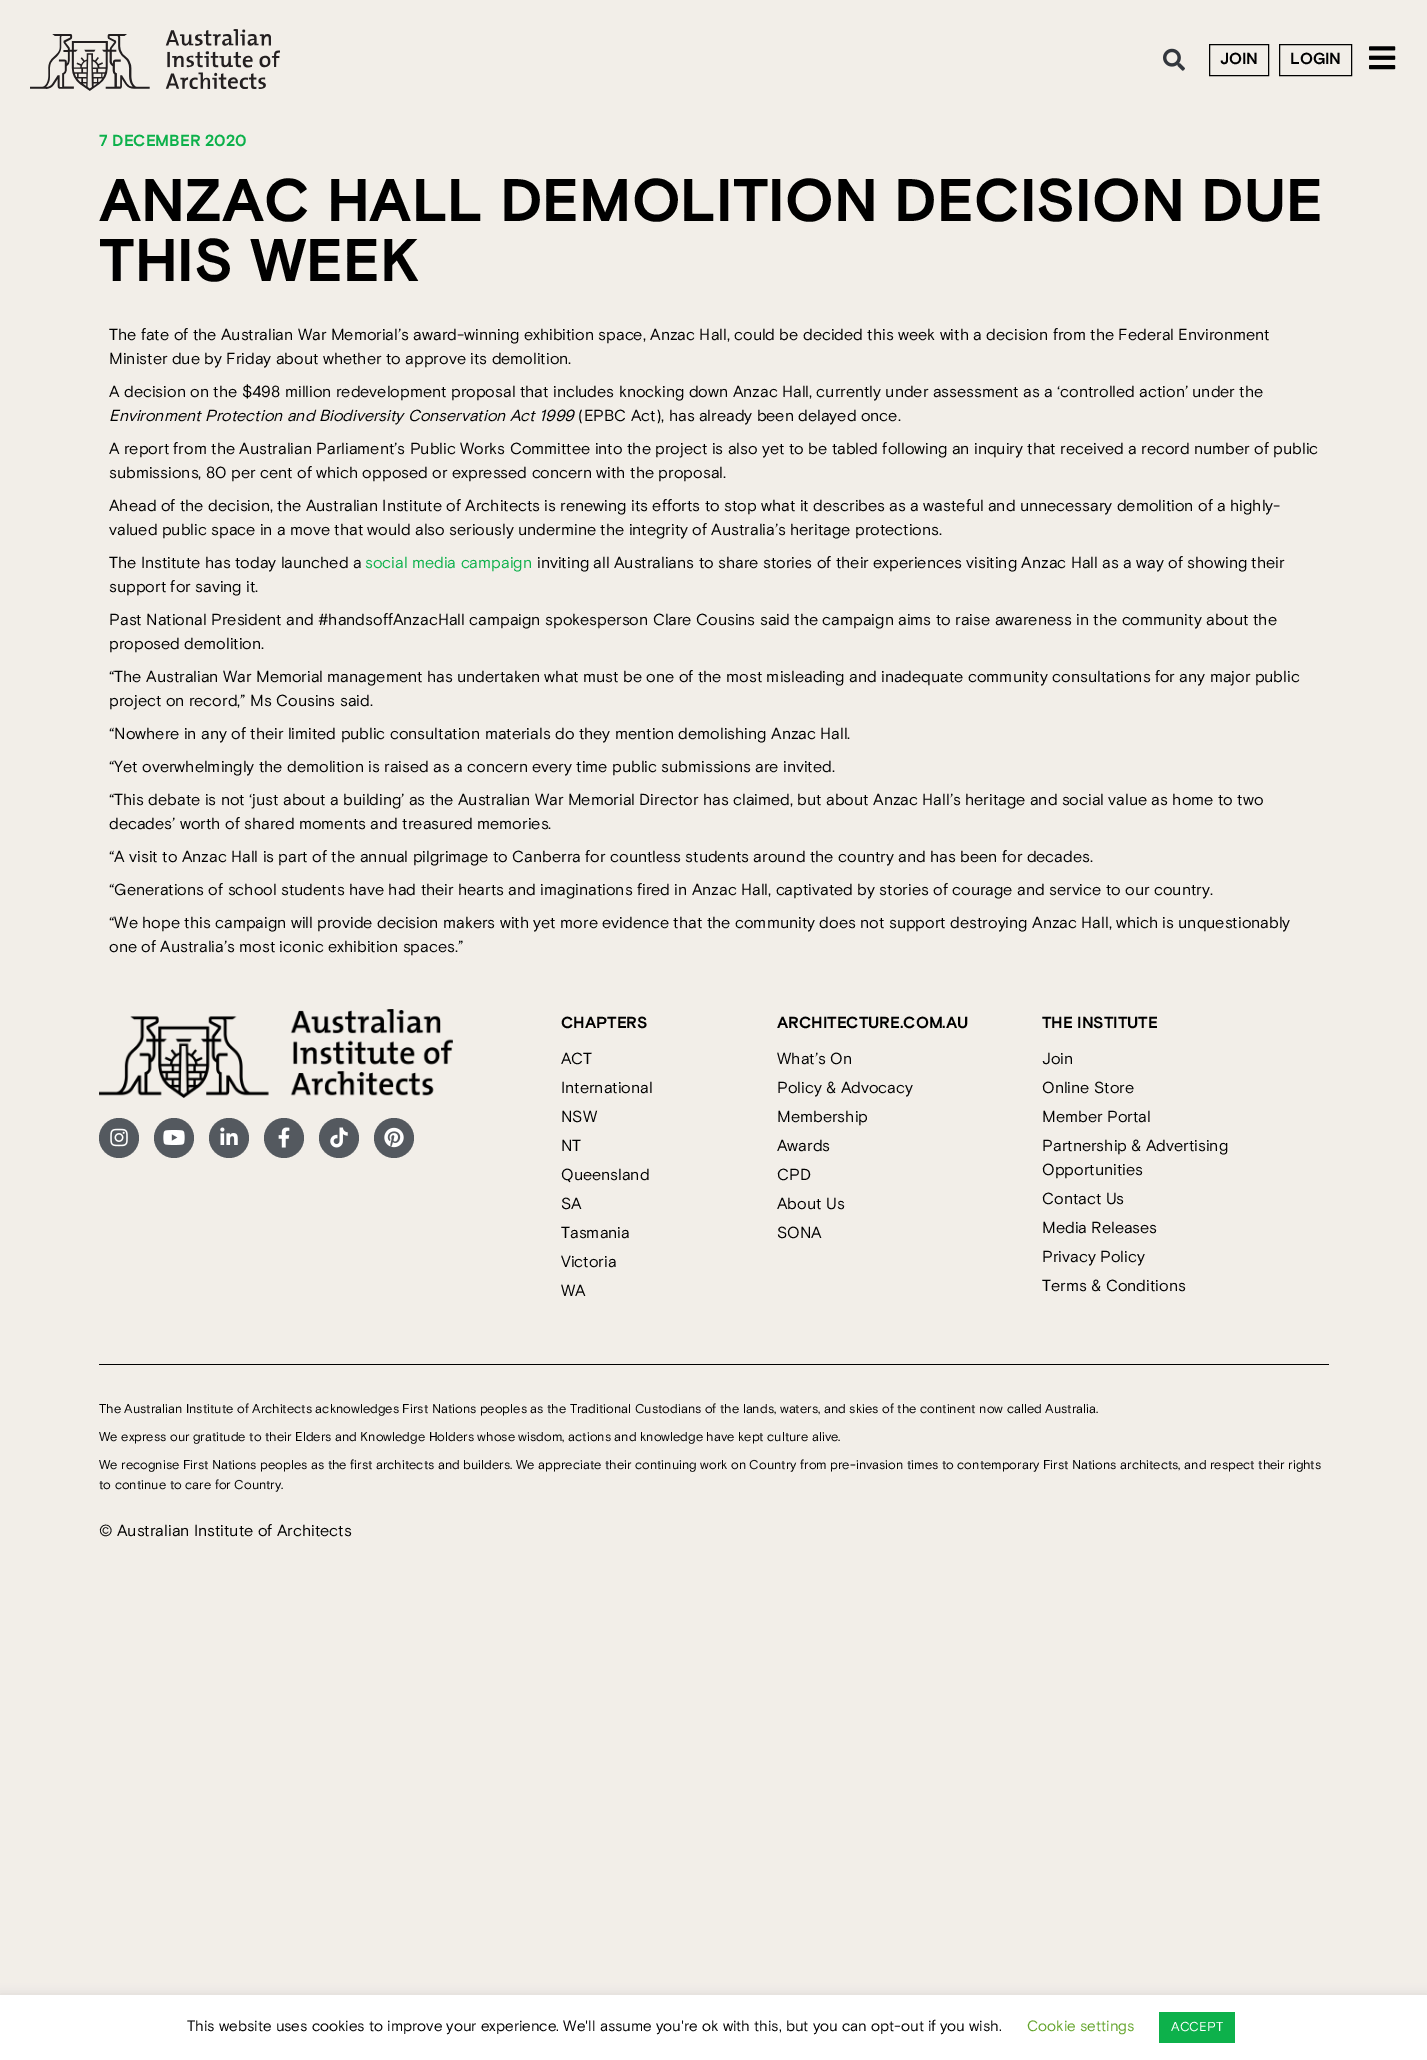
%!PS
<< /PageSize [1427 2060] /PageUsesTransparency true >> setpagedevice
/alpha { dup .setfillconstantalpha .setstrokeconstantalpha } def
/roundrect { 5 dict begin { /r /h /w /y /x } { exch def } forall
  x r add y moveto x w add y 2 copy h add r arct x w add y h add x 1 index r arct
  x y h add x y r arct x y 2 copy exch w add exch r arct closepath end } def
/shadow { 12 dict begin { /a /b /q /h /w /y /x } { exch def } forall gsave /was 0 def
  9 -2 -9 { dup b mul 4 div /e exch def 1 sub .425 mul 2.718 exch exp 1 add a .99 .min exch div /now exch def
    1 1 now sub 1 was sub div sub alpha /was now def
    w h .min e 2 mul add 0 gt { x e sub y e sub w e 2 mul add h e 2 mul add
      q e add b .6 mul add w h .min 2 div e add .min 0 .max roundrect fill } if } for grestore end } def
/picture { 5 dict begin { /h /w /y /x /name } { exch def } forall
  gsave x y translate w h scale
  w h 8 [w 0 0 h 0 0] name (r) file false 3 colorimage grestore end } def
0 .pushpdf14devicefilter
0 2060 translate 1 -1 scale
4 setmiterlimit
0.949 0.933 0.91 setrgbcolor
0 0 1427 2060 rectfill
(img1.rgb) 30 29 250 62 picture
(img2.rgb) 1163 48 22 23 picture
0 setgray
1209.5 44.5 59 31 rectstroke
/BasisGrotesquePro-Bold [16 0 0 -16 0 0] selectfont
1220 64 moveto (JOIN) show
1279.5 44.5 72 31 rectstroke
1290 64 moveto (LOGIN) show
(img3.rgb) 1369 46 27 24 picture
0.051 0.694 0.294 setrgbcolor
99 146 moveto (7 DECEMBER 2020) show
/BasisGrotesquePro-Bold [60 0 0 -60 0 0] selectfont
0 setgray
99 221 moveto (ANZAC HALL DEMOLITION DECISION DUE) show
99 281 moveto (THIS WEEK) show
/BasisGrotesquePro-Regular [16 0 0 -16 0 0] selectfont
109 340 moveto (The fate of the Australian War Memorial’s award-winning exhibition space, Anzac Hall, could be decided this week with a decision from the Federal Environment) show
109 364 moveto (Minister due by Friday about whether to approve its demolition.) show
109 397 moveto (A decision on the $498 million redevelopment proposal that includes knocking down Anzac Hall, currently under assessment as a ‘controlled action’ under the) show
/BasisGrotesquePro-Italic [16 0 0 -16 0 0] selectfont
109 421 moveto (Environment Protection and Biodiversity Conservation Act 1999) show
/BasisGrotesquePro-Regular [16 0 0 -16 0 0] selectfont
578 421 moveto (\(EPBC Act\), has already been delayed once.) show
109 454 moveto (A report from the Australian Parliament’s Public Works Committee into the project is also yet to be tabled following an inquiry that received a record number of public) show
109 478 moveto (submissions, 80 per cent of which opposed or expressed concern with the proposal.) show
109 511 moveto (Ahead of the decision, the Australian Institute of Architects is renewing its efforts to stop what it describes as a wasteful and unnecessary demolition of a highly-) show
109 535 moveto (valued public space in a move that would also seriously undermine the integrity of Australia’s heritage protections.) show
109 568 moveto (The Institute has today launched a) show
0.051 0.694 0.294 setrgbcolor
365 568 moveto (social media campaign) show
0 setgray
537 568 moveto (inviting all Australians to share stories of their experiences visiting Anzac Hall as a way of showing their) show
109 592 moveto (support for saving it.) show
109 625 moveto (Past National President and #handsoffAnzacHall campaign spokesperson Clare Cousins said the campaign aims to raise awareness in the community about the) show
109 649 moveto (proposed demolition.) show
109 682 moveto (“The Australian War Memorial management has undertaken what must be one of the most misleading and inadequate community consultations for any major public) show
109 706 moveto (project on record,” Ms Cousins said.) show
109 739 moveto (“Nowhere in any of their limited public consultation materials do they mention demolishing Anzac Hall.) show
109 772 moveto (“Yet overwhelmingly the demolition is raised as a concern every time public submissions are invited.) show
109 805 moveto (“This debate is not ‘just about a building’ as the Australian War Memorial Director has claimed, but about Anzac Hall’s heritage and social value as home to two) show
109 829 moveto (decades’ worth of shared moments and treasured memories.) show
109 862 moveto (“A visit to Anzac Hall is part of the annual pilgrimage to Canberra for countless students around the country and has been for decades.) show
109 895 moveto (“Generations of school students have had their hearts and imaginations fired in Anzac Hall, captivated by stories of courage and service to our country.) show
109 928 moveto (“We hope this campaign will provide decision makers with yet more evidence that the community does not support destroying Anzac Hall, which is unquestionably) show
109 952 moveto (one of Australia’s most iconic exhibition spaces.”) show
(img4.rgb) 99 1009 354 89 picture
0.329 0.349 0.373 setrgbcolor
newpath 119 1138 20 0 360 arc closepath fill
(img5.rgb) 110 1128 18 19 picture
newpath 174 1138 20 0 360 arc closepath fill
(img6.rgb) 163 1130 22 15 picture
newpath 229 1138 20 0 360 arc closepath fill
(img7.rgb) 220 1127 18 18 picture
newpath 284 1138 20 0 360 arc closepath fill
(img8.rgb) 278 1127 12 21 picture
newpath 339 1138 20 0 360 arc closepath fill
(img9.rgb) 330 1127 18 21 picture
newpath 394 1138 20 0 360 arc closepath fill
(img10.rgb) 384 1127 20 21 picture
/BasisGrotesquePro-Bold [16 0 0 -16 0 0] selectfont
0 setgray
561 1028 moveto (CHAPTERS) show
/BasisGrotesquePro-Regular [16 0 0 -16 0 0] selectfont
561 1064 moveto (ACT) show
561 1093 moveto (International) show
561 1122 moveto (NSW) show
561 1151 moveto (NT) show
561 1180 moveto (Queensland) show
561 1209 moveto (SA) show
561 1238 moveto (Tasmania) show
561 1267 moveto (Victoria) show
561 1296 moveto (WA) show
/BasisGrotesquePro-Bold [16 0 0 -16 0 0] selectfont
777 1028 moveto (ARCHITECTURE.COM.AU) show
/BasisGrotesquePro-Regular [16 0 0 -16 0 0] selectfont
777 1064 moveto (What’s On) show
777 1093 moveto (Policy & Advocacy) show
777 1122 moveto (Membership) show
777 1151 moveto (Awards) show
777 1180 moveto (CPD) show
777 1209 moveto (About Us) show
777 1238 moveto (SONA) show
/BasisGrotesquePro-Bold [16 0 0 -16 0 0] selectfont
1042 1028 moveto (THE INSTITUTE) show
/BasisGrotesquePro-Regular [16 0 0 -16 0 0] selectfont
1042 1064 moveto (Join) show
1042 1093 moveto (Online Store) show
1042 1122 moveto (Member Portal) show
1042 1151 moveto (Partnership & Advertising) show
1042 1175 moveto (Opportunities) show
1042 1204 moveto (Contact Us) show
1042 1233 moveto (Media Releases) show
1042 1262 moveto (Privacy Policy) show
1042 1291 moveto (Terms & Conditions) show
99 1364 1230 1 rectfill
/BasisGrotesquePro-Regular [12.8 0 0 -12.8 0 0] selectfont
99 1413 moveto (The Australian Institute of Architects acknowledges First Nations peoples as the Traditional Custodians of the lands, waters, and skies of the continent now called Australia.) show
99 1441 moveto (We express our gratitude to their Elders and Knowledge Holders whose wisdom, actions and knowledge have kept culture alive.) show
99 1469 moveto (We recognise First Nations peoples as the first architects and builders. We appreciate their continuing work on Country from pre-invasion times to contemporary First Nations architects, and respect their rights) show
99 1489 moveto (to continue to care for Country.) show
/BasisGrotesquePro-Regular [16 0 0 -16 0 0] selectfont
99 1536 moveto (© Australian Institute of Architects) show
0.675 0.671 0.671 setrgbcolor
0 1994 1427 65 0 5 0.3 shadow
1 setgray
0 1995 1427 65 rectfill
/BasisGrotesquePro-Regular [15 0 0 -15 0 0] selectfont
0 setgray
187 2031 moveto (This website uses cookies to improve your experience. We'll assume you're ok with this, but you can opt-out if you wish.) show
0.384 0.639 0.161 setrgbcolor
1027 2031 moveto (Cookie settings) show
0.051 0.694 0.294 setrgbcolor
1159 2012 76 31 rectfill
/BasisGrotesquePro-Regular [13 0 0 -13 0 0] selectfont
1 setgray
1171 2031 moveto (ACCEPT) show
.poppdf14devicefilter showpage
